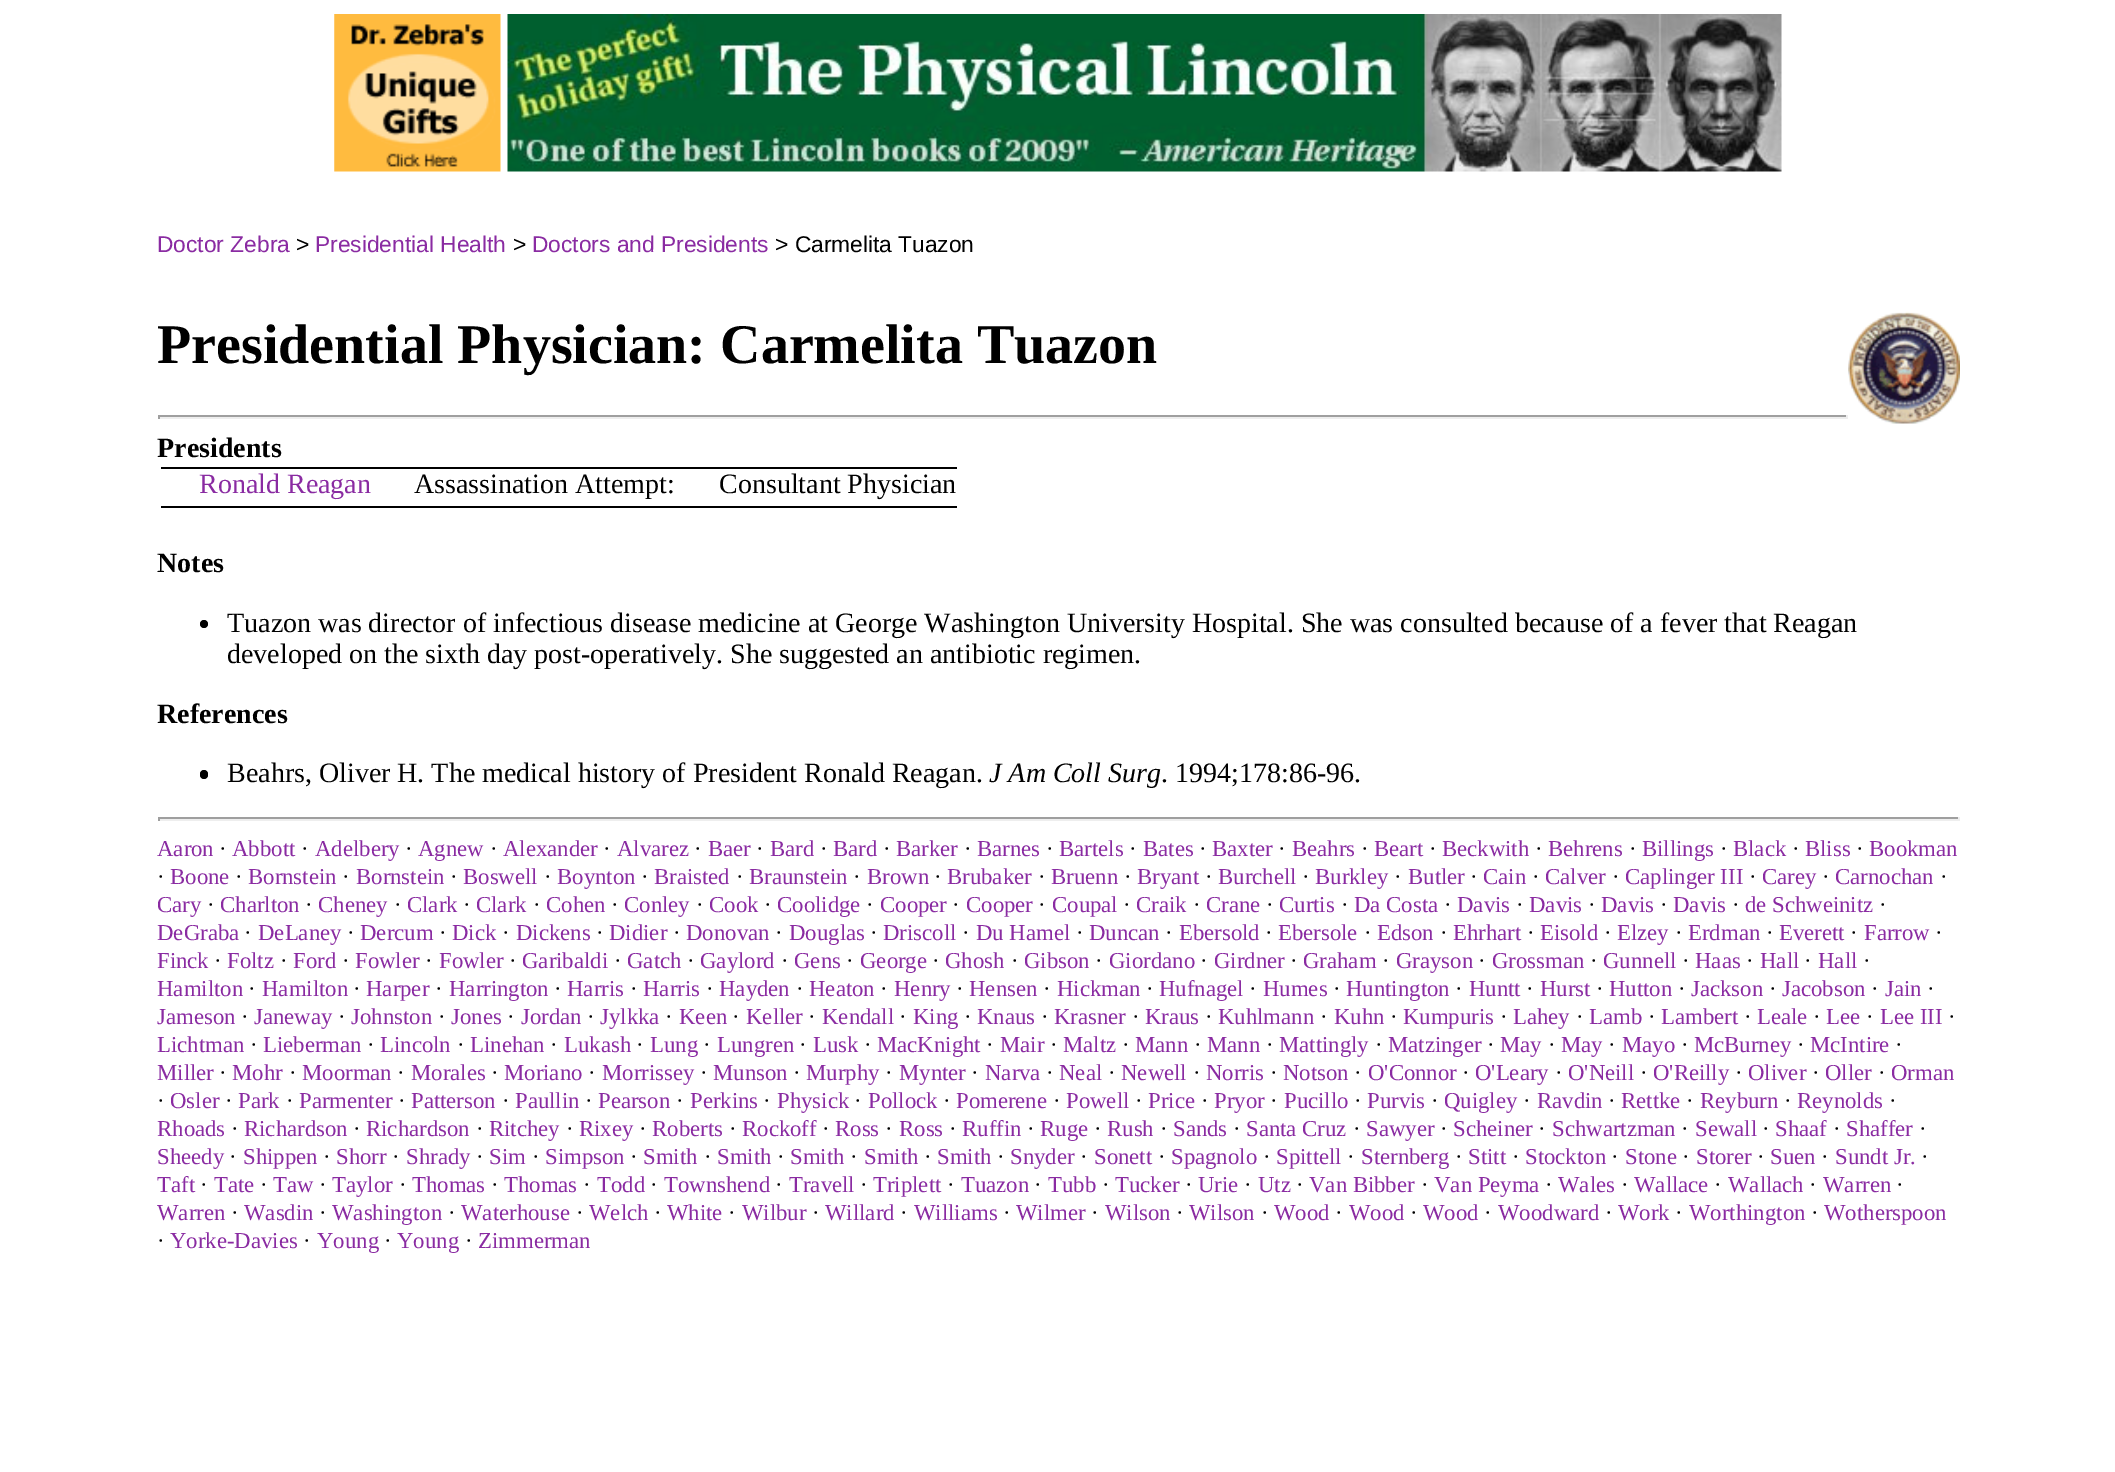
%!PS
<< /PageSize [2115 1472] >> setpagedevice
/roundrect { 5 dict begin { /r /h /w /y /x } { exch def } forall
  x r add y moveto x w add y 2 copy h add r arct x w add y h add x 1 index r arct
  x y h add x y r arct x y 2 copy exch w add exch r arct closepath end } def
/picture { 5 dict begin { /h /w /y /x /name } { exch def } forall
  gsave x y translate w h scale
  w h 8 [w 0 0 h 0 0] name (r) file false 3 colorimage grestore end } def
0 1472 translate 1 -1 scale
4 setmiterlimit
1 setgray
0 0 2115 1472 rectfill
(img1.rgb) 334 14 167 158 picture
(img2.rgb) 507 14 1275 158 picture
/LiberationSans-Regular [22.75 0 0 -22.75 0 0] selectfont
0.541 0.169 0.635 setrgbcolor
157 252 moveto (Doctor Zebra) show
0 setgray
296 252 moveto (>) show
0.541 0.169 0.635 setrgbcolor
315 252 moveto (Presidential Health) show
0 setgray
513 252 moveto (>) show
0.541 0.169 0.635 setrgbcolor
532 252 moveto (Doctors and Presidents) show
0 setgray
775 252 moveto (> Carmelita Tuazon) show
/LiberationSerif-Bold [56 0 0 -56 0 0] selectfont
157 363 moveto (Presidential Physician: Carmelita Tuazon) show
(img3.rgb) 1848 311 112 113 picture
0.624 setgray
158 415 1690 2 rectfill
0.933 setgray
1846 415 2 4 rectfill
158 417 1690 2 rectfill
0.624 setgray
158 415 2 4 rectfill
/LiberationSerif-Bold [28 0 0 -28 0 0] selectfont
0 setgray
157 457 moveto (Presidents) show
161 467 796 2 rectfill
/LiberationSerif-Regular [28 0 0 -28 0 0] selectfont
0.541 0.169 0.635 setrgbcolor
199 493 moveto (Ronald Reagan) show
0 setgray
414 493 moveto (Assassination Attempt:) show
719 493 moveto (Consultant Physician) show
161 506 796 2 rectfill
/LiberationSerif-Bold [28 0 0 -28 0 0] selectfont
157 572 moveto (Notes) show
newpath 204 624 4 0 360 arc closepath fill
/LiberationSerif-Regular [28 0 0 -28 0 0] selectfont
227 632 moveto (Tuazon was director of infectious disease medicine at George Washington University Hospital. She was consulted because of a fever that Reagan) show
227 663 moveto (developed on the sixth day post-operatively. She suggested an antibiotic regimen.) show
/LiberationSerif-Bold [28 0 0 -28 0 0] selectfont
157 723 moveto (References) show
200 770 8 9 4 roundrect fill
/LiberationSerif-Regular [28 0 0 -28 0 0] selectfont
227 782 moveto (Beahrs, Oliver H. The medical history of President Ronald Reagan.) show
/LiberationSerif-Italic [28 0 0 -28 0 0] selectfont
989 782 moveto (J Am Coll Surg) show
/LiberationSerif-Regular [28 0 0 -28 0 0] selectfont
1161 782 moveto (. 1994;178:86-96.) show
0.624 setgray
158 817 1802 2 rectfill
0.933 setgray
1958 817 2 4 rectfill
158 819 1802 2 rectfill
0.624 setgray
158 817 2 4 rectfill
/LiberationSerif-Regular [22.75 0 0 -22.75 0 0] selectfont
0.541 0.169 0.635 setrgbcolor
157 856 moveto (Aaron) show
0 setgray
219 856 moveto (·) show
0.541 0.169 0.635 setrgbcolor
232 856 moveto (Abbott) show
0 setgray
301 856 moveto (·) show
0.541 0.169 0.635 setrgbcolor
315 856 moveto (Adelbery) show
0 setgray
405 856 moveto (·) show
0.541 0.169 0.635 setrgbcolor
418 856 moveto (Agnew) show
0 setgray
490 856 moveto (·) show
0.541 0.169 0.635 setrgbcolor
503 856 moveto (Alexander) show
0 setgray
603 856 moveto (·) show
0.541 0.169 0.635 setrgbcolor
617 856 moveto (Alvarez) show
0 setgray
694 856 moveto (·) show
0.541 0.169 0.635 setrgbcolor
708 856 moveto (Baer) show
0 setgray
756 856 moveto (·) show
0.541 0.169 0.635 setrgbcolor
770 856 moveto (Bard) show
0 setgray
820 856 moveto (·) show
0.541 0.169 0.635 setrgbcolor
833 856 moveto (Bard) show
0 setgray
883 856 moveto (·) show
0.541 0.169 0.635 setrgbcolor
896 856 moveto (Barker) show
0 setgray
964 856 moveto (·) show
0.541 0.169 0.635 setrgbcolor
977 856 moveto (Barnes) show
0 setgray
1046 856 moveto (·) show
0.541 0.169 0.635 setrgbcolor
1059 856 moveto (Bartels) show
0 setgray
1129 856 moveto (·) show
0.541 0.169 0.635 setrgbcolor
1143 856 moveto (Bates) show
0 setgray
1199 856 moveto (·) show
0.541 0.169 0.635 setrgbcolor
1212 856 moveto (Baxter) show
0 setgray
1278 856 moveto (·) show
0.541 0.169 0.635 setrgbcolor
1292 856 moveto (Beahrs) show
0 setgray
1361 856 moveto (·) show
0.541 0.169 0.635 setrgbcolor
1374 856 moveto (Beart) show
0 setgray
1429 856 moveto (·) show
0.541 0.169 0.635 setrgbcolor
1442 856 moveto (Beckwith) show
0 setgray
1535 856 moveto (·) show
0.541 0.169 0.635 setrgbcolor
1548 856 moveto (Behrens) show
0 setgray
1629 856 moveto (·) show
0.541 0.169 0.635 setrgbcolor
1642 856 moveto (Billings) show
0 setgray
1720 856 moveto (·) show
0.541 0.169 0.635 setrgbcolor
1733 856 moveto (Black) show
0 setgray
1792 856 moveto (·) show
0.541 0.169 0.635 setrgbcolor
1805 856 moveto (Bliss) show
0 setgray
1856 856 moveto (·) show
0.541 0.169 0.635 setrgbcolor
1869 856 moveto (Bookman) show
0 setgray
157 884 moveto (·) show
0.541 0.169 0.635 setrgbcolor
170 884 moveto (Boone) show
0 setgray
235 884 moveto (·) show
0.541 0.169 0.635 setrgbcolor
248 884 moveto (Bornstein) show
0 setgray
342 884 moveto (·) show
0.541 0.169 0.635 setrgbcolor
356 884 moveto (Bornstein) show
0 setgray
450 884 moveto (·) show
0.541 0.169 0.635 setrgbcolor
463 884 moveto (Boswell) show
0 setgray
544 884 moveto (·) show
0.541 0.169 0.635 setrgbcolor
557 884 moveto (Boynton) show
0 setgray
641 884 moveto (·) show
0.541 0.169 0.635 setrgbcolor
654 884 moveto (Braisted) show
0 setgray
736 884 moveto (·) show
0.541 0.169 0.635 setrgbcolor
749 884 moveto (Braunstein) show
0 setgray
853 884 moveto (·) show
0.541 0.169 0.635 setrgbcolor
867 884 moveto (Brown) show
0 setgray
934 884 moveto (·) show
0.541 0.169 0.635 setrgbcolor
947 884 moveto (Brubaker) show
0 setgray
1038 884 moveto (·) show
0.541 0.169 0.635 setrgbcolor
1051 884 moveto (Bruenn) show
0 setgray
1124 884 moveto (·) show
0.541 0.169 0.635 setrgbcolor
1137 884 moveto (Bryant) show
0 setgray
1205 884 moveto (·) show
0.541 0.169 0.635 setrgbcolor
1218 884 moveto (Burchell) show
0 setgray
1302 884 moveto (·) show
0.541 0.169 0.635 setrgbcolor
1315 884 moveto (Burkley) show
0 setgray
1394 884 moveto (·) show
0.541 0.169 0.635 setrgbcolor
1408 884 moveto (Butler) show
0 setgray
1470 884 moveto (·) show
0.541 0.169 0.635 setrgbcolor
1483 884 moveto (Cain) show
0 setgray
1532 884 moveto (·) show
0.541 0.169 0.635 setrgbcolor
1545 884 moveto (Calver) show
0 setgray
1612 884 moveto (·) show
0.541 0.169 0.635 setrgbcolor
1625 884 moveto (Caplinger III) show
0 setgray
1749 884 moveto (·) show
0.541 0.169 0.635 setrgbcolor
1762 884 moveto (Carey) show
0 setgray
1822 884 moveto (·) show
0.541 0.169 0.635 setrgbcolor
1835 884 moveto (Carnochan) show
0 setgray
1940 884 moveto (·) show
0.541 0.169 0.635 setrgbcolor
157 912 moveto (Cary) show
0 setgray
207 912 moveto (·) show
0.541 0.169 0.635 setrgbcolor
220 912 moveto (Charlton) show
0 setgray
305 912 moveto (·) show
0.541 0.169 0.635 setrgbcolor
318 912 moveto (Cheney) show
0 setgray
394 912 moveto (·) show
0.541 0.169 0.635 setrgbcolor
407 912 moveto (Clark) show
0 setgray
463 912 moveto (·) show
0.541 0.169 0.635 setrgbcolor
476 912 moveto (Clark) show
0 setgray
533 912 moveto (·) show
0.541 0.169 0.635 setrgbcolor
546 912 moveto (Cohen) show
0 setgray
611 912 moveto (·) show
0.541 0.169 0.635 setrgbcolor
624 912 moveto (Conley) show
0 setgray
696 912 moveto (·) show
0.541 0.169 0.635 setrgbcolor
709 912 moveto (Cook) show
0 setgray
764 912 moveto (·) show
0.541 0.169 0.635 setrgbcolor
777 912 moveto (Coolidge) show
0 setgray
866 912 moveto (·) show
0.541 0.169 0.635 setrgbcolor
880 912 moveto (Cooper) show
0 setgray
952 912 moveto (·) show
0.541 0.169 0.635 setrgbcolor
966 912 moveto (Cooper) show
0 setgray
1038 912 moveto (·) show
0.541 0.169 0.635 setrgbcolor
1052 912 moveto (Coupal) show
0 setgray
1123 912 moveto (·) show
0.541 0.169 0.635 setrgbcolor
1136 912 moveto (Craik) show
0 setgray
1193 912 moveto (·) show
0.541 0.169 0.635 setrgbcolor
1206 912 moveto (Crane) show
0 setgray
1266 912 moveto (·) show
0.541 0.169 0.635 setrgbcolor
1279 912 moveto (Curtis) show
0 setgray
1341 912 moveto (·) show
0.541 0.169 0.635 setrgbcolor
1354 912 moveto (Da Costa) show
0 setgray
1444 912 moveto (·) show
0.541 0.169 0.635 setrgbcolor
1457 912 moveto (Davis) show
0 setgray
1516 912 moveto (·) show
0.541 0.169 0.635 setrgbcolor
1529 912 moveto (Davis) show
0 setgray
1588 912 moveto (·) show
0.541 0.169 0.635 setrgbcolor
1601 912 moveto (Davis) show
0 setgray
1660 912 moveto (·) show
0.541 0.169 0.635 setrgbcolor
1673 912 moveto (Davis) show
0 setgray
1732 912 moveto (·) show
0.541 0.169 0.635 setrgbcolor
1745 912 moveto (de Schweinitz) show
0 setgray
1879 912 moveto (·) show
0.541 0.169 0.635 setrgbcolor
157 940 moveto (DeGraba) show
0 setgray
244 940 moveto (·) show
0.541 0.169 0.635 setrgbcolor
258 940 moveto (DeLaney) show
0 setgray
347 940 moveto (·) show
0.541 0.169 0.635 setrgbcolor
360 940 moveto (Dercum) show
0 setgray
439 940 moveto (·) show
0.541 0.169 0.635 setrgbcolor
452 940 moveto (Dick) show
0 setgray
502 940 moveto (·) show
0.541 0.169 0.635 setrgbcolor
516 940 moveto (Dickens) show
0 setgray
596 940 moveto (·) show
0.541 0.169 0.635 setrgbcolor
609 940 moveto (Didier) show
0 setgray
673 940 moveto (·) show
0.541 0.169 0.635 setrgbcolor
686 940 moveto (Donovan) show
0 setgray
775 940 moveto (·) show
0.541 0.169 0.635 setrgbcolor
789 940 moveto (Douglas) show
0 setgray
870 940 moveto (·) show
0.541 0.169 0.635 setrgbcolor
883 940 moveto (Driscoll) show
0 setgray
962 940 moveto (·) show
0.541 0.169 0.635 setrgbcolor
976 940 moveto (Du Hamel) show
0 setgray
1076 940 moveto (·) show
0.541 0.169 0.635 setrgbcolor
1089 940 moveto (Duncan) show
0 setgray
1165 940 moveto (·) show
0.541 0.169 0.635 setrgbcolor
1179 940 moveto (Ebersold) show
0 setgray
1265 940 moveto (·) show
0.541 0.169 0.635 setrgbcolor
1278 940 moveto (Ebersole) show
0 setgray
1364 940 moveto (·) show
0.541 0.169 0.635 setrgbcolor
1377 940 moveto (Edson) show
0 setgray
1440 940 moveto (·) show
0.541 0.169 0.635 setrgbcolor
1453 940 moveto (Ehrhart) show
0 setgray
1527 940 moveto (·) show
0.541 0.169 0.635 setrgbcolor
1540 940 moveto (Eisold) show
0 setgray
1604 940 moveto (·) show
0.541 0.169 0.635 setrgbcolor
1617 940 moveto (Elzey) show
0 setgray
1675 940 moveto (·) show
0.541 0.169 0.635 setrgbcolor
1688 940 moveto (Erdman) show
0 setgray
1766 940 moveto (·) show
0.541 0.169 0.635 setrgbcolor
1779 940 moveto (Everett) show
0 setgray
1850 940 moveto (·) show
0.541 0.169 0.635 setrgbcolor
1864 940 moveto (Farrow) show
0 setgray
1935 940 moveto (·) show
0.541 0.169 0.635 setrgbcolor
157 968 moveto (Finck) show
0 setgray
214 968 moveto (·) show
0.541 0.169 0.635 setrgbcolor
227 968 moveto (Foltz) show
0 setgray
280 968 moveto (·) show
0.541 0.169 0.635 setrgbcolor
293 968 moveto (Ford) show
0 setgray
342 968 moveto (·) show
0.541 0.169 0.635 setrgbcolor
355 968 moveto (Fowler) show
0 setgray
425 968 moveto (·) show
0.541 0.169 0.635 setrgbcolor
439 968 moveto (Fowler) show
0 setgray
509 968 moveto (·) show
0.541 0.169 0.635 setrgbcolor
522 968 moveto (Garibaldi) show
0 setgray
614 968 moveto (·) show
0.541 0.169 0.635 setrgbcolor
627 968 moveto (Gatch) show
0 setgray
687 968 moveto (·) show
0.541 0.169 0.635 setrgbcolor
700 968 moveto (Gaylord) show
0 setgray
781 968 moveto (·) show
0.541 0.169 0.635 setrgbcolor
794 968 moveto (Gens) show
0 setgray
846 968 moveto (·) show
0.541 0.169 0.635 setrgbcolor
860 968 moveto (George) show
0 setgray
932 968 moveto (·) show
0.541 0.169 0.635 setrgbcolor
945 968 moveto (Ghosh) show
0 setgray
1011 968 moveto (·) show
0.541 0.169 0.635 setrgbcolor
1024 968 moveto (Gibson) show
0 setgray
1095 968 moveto (·) show
0.541 0.169 0.635 setrgbcolor
1109 968 moveto (Giordano) show
0 setgray
1200 968 moveto (·) show
0.541 0.169 0.635 setrgbcolor
1214 968 moveto (Girdner) show
0 setgray
1290 968 moveto (·) show
0.541 0.169 0.635 setrgbcolor
1303 968 moveto (Graham) show
0 setgray
1382 968 moveto (·) show
0.541 0.169 0.635 setrgbcolor
1396 968 moveto (Grayson) show
0 setgray
1478 968 moveto (·) show
0.541 0.169 0.635 setrgbcolor
1492 968 moveto (Grossman) show
0 setgray
1590 968 moveto (·) show
0.541 0.169 0.635 setrgbcolor
1603 968 moveto (Gunnell) show
0 setgray
1682 968 moveto (·) show
0.541 0.169 0.635 setrgbcolor
1695 968 moveto (Haas) show
0 setgray
1746 968 moveto (·) show
0.541 0.169 0.635 setrgbcolor
1760 968 moveto (Hall) show
0 setgray
1804 968 moveto (·) show
0.541 0.169 0.635 setrgbcolor
1818 968 moveto (Hall) show
0 setgray
1863 968 moveto (·) show
0.541 0.169 0.635 setrgbcolor
157 996 moveto (Hamilton) show
0 setgray
248 996 moveto (·) show
0.541 0.169 0.635 setrgbcolor
262 996 moveto (Hamilton) show
0 setgray
353 996 moveto (·) show
0.541 0.169 0.635 setrgbcolor
366 996 moveto (Harper) show
0 setgray
435 996 moveto (·) show
0.541 0.169 0.635 setrgbcolor
449 996 moveto (Harrington) show
0 setgray
554 996 moveto (·) show
0.541 0.169 0.635 setrgbcolor
567 996 moveto (Harris) show
0 setgray
630 996 moveto (·) show
0.541 0.169 0.635 setrgbcolor
643 996 moveto (Harris) show
0 setgray
706 996 moveto (·) show
0.541 0.169 0.635 setrgbcolor
719 996 moveto (Hayden) show
0 setgray
796 996 moveto (·) show
0.541 0.169 0.635 setrgbcolor
809 996 moveto (Heaton) show
0 setgray
880 996 moveto (·) show
0.541 0.169 0.635 setrgbcolor
894 996 moveto (Henry) show
0 setgray
956 996 moveto (·) show
0.541 0.169 0.635 setrgbcolor
969 996 moveto (Hensen) show
0 setgray
1043 996 moveto (·) show
0.541 0.169 0.635 setrgbcolor
1057 996 moveto (Hickman) show
0 setgray
1146 996 moveto (·) show
0.541 0.169 0.635 setrgbcolor
1159 996 moveto (Hufnagel) show
0 setgray
1249 996 moveto (·) show
0.541 0.169 0.635 setrgbcolor
1263 996 moveto (Humes) show
0 setgray
1333 996 moveto (·) show
0.541 0.169 0.635 setrgbcolor
1346 996 moveto (Huntington) show
0 setgray
1455 996 moveto (·) show
0.541 0.169 0.635 setrgbcolor
1469 996 moveto (Huntt) show
0 setgray
1526 996 moveto (·) show
0.541 0.169 0.635 setrgbcolor
1540 996 moveto (Hurst) show
0 setgray
1596 996 moveto (·) show
0.541 0.169 0.635 setrgbcolor
1609 996 moveto (Hutton) show
0 setgray
1678 996 moveto (·) show
0.541 0.169 0.635 setrgbcolor
1691 996 moveto (Jackson) show
0 setgray
1769 996 moveto (·) show
0.541 0.169 0.635 setrgbcolor
1782 996 moveto (Jacobson) show
0 setgray
1871 996 moveto (·) show
0.541 0.169 0.635 setrgbcolor
1885 996 moveto (Jain) show
0 setgray
1927 996 moveto (·) show
0.541 0.169 0.635 setrgbcolor
157 1024 moveto (Jameson) show
0 setgray
241 1024 moveto (·) show
0.541 0.169 0.635 setrgbcolor
254 1024 moveto (Janeway) show
0 setgray
338 1024 moveto (·) show
0.541 0.169 0.635 setrgbcolor
351 1024 moveto (Johnston) show
0 setgray
438 1024 moveto (·) show
0.541 0.169 0.635 setrgbcolor
451 1024 moveto (Jones) show
0 setgray
507 1024 moveto (·) show
0.541 0.169 0.635 setrgbcolor
521 1024 moveto (Jordan) show
0 setgray
587 1024 moveto (·) show
0.541 0.169 0.635 setrgbcolor
600 1024 moveto (Jylkka) show
0 setgray
665 1024 moveto (·) show
0.541 0.169 0.635 setrgbcolor
679 1024 moveto (Keen) show
0 setgray
732 1024 moveto (·) show
0.541 0.169 0.635 setrgbcolor
746 1024 moveto (Keller) show
0 setgray
808 1024 moveto (·) show
0.541 0.169 0.635 setrgbcolor
822 1024 moveto (Kendall) show
0 setgray
899 1024 moveto (·) show
0.541 0.169 0.635 setrgbcolor
913 1024 moveto (King) show
0 setgray
964 1024 moveto (·) show
0.541 0.169 0.635 setrgbcolor
977 1024 moveto (Knaus) show
0 setgray
1041 1024 moveto (·) show
0.541 0.169 0.635 setrgbcolor
1054 1024 moveto (Krasner) show
0 setgray
1132 1024 moveto (·) show
0.541 0.169 0.635 setrgbcolor
1145 1024 moveto (Kraus) show
0 setgray
1205 1024 moveto (·) show
0.541 0.169 0.635 setrgbcolor
1218 1024 moveto (Kuhlmann) show
0 setgray
1320 1024 moveto (·) show
0.541 0.169 0.635 setrgbcolor
1334 1024 moveto (Kuhn) show
0 setgray
1390 1024 moveto (·) show
0.541 0.169 0.635 setrgbcolor
1403 1024 moveto (Kumpuris) show
0 setgray
1500 1024 moveto (·) show
0.541 0.169 0.635 setrgbcolor
1513 1024 moveto (Lahey) show
0 setgray
1576 1024 moveto (·) show
0.541 0.169 0.635 setrgbcolor
1589 1024 moveto (Lamb) show
0 setgray
1648 1024 moveto (·) show
0.541 0.169 0.635 setrgbcolor
1661 1024 moveto (Lambert) show
0 setgray
1744 1024 moveto (·) show
0.541 0.169 0.635 setrgbcolor
1757 1024 moveto (Leale) show
0 setgray
1813 1024 moveto (·) show
0.541 0.169 0.635 setrgbcolor
1826 1024 moveto (Lee) show
0 setgray
1866 1024 moveto (·) show
0.541 0.169 0.635 setrgbcolor
1880 1024 moveto (Lee III) show
0 setgray
1948 1024 moveto (·) show
0.541 0.169 0.635 setrgbcolor
157 1052 moveto (Lichtman) show
0 setgray
250 1052 moveto (·) show
0.541 0.169 0.635 setrgbcolor
263 1052 moveto (Lieberman) show
0 setgray
367 1052 moveto (·) show
0.541 0.169 0.635 setrgbcolor
380 1052 moveto (Lincoln) show
0 setgray
457 1052 moveto (·) show
0.541 0.169 0.635 setrgbcolor
470 1052 moveto (Linehan) show
0 setgray
550 1052 moveto (·) show
0.541 0.169 0.635 setrgbcolor
564 1052 moveto (Lukash) show
0 setgray
636 1052 moveto (·) show
0.541 0.169 0.635 setrgbcolor
650 1052 moveto (Lung) show
0 setgray
703 1052 moveto (·) show
0.541 0.169 0.635 setrgbcolor
717 1052 moveto (Lungren) show
0 setgray
799 1052 moveto (·) show
0.541 0.169 0.635 setrgbcolor
813 1052 moveto (Lusk) show
0 setgray
864 1052 moveto (·) show
0.541 0.169 0.635 setrgbcolor
877 1052 moveto (MacKnight) show
0 setgray
986 1052 moveto (·) show
0.541 0.169 0.635 setrgbcolor
1000 1052 moveto (Mair) show
0 setgray
1050 1052 moveto (·) show
0.541 0.169 0.635 setrgbcolor
1063 1052 moveto (Maltz) show
0 setgray
1122 1052 moveto (·) show
0.541 0.169 0.635 setrgbcolor
1135 1052 moveto (Mann) show
0 setgray
1194 1052 moveto (·) show
0.541 0.169 0.635 setrgbcolor
1207 1052 moveto (Mann) show
0 setgray
1266 1052 moveto (·) show
0.541 0.169 0.635 setrgbcolor
1279 1052 moveto (Mattingly) show
0 setgray
1375 1052 moveto (·) show
0.541 0.169 0.635 setrgbcolor
1388 1052 moveto (Matzinger) show
0 setgray
1487 1052 moveto (·) show
0.541 0.169 0.635 setrgbcolor
1500 1052 moveto (May) show
0 setgray
1548 1052 moveto (·) show
0.541 0.169 0.635 setrgbcolor
1561 1052 moveto (May) show
0 setgray
1608 1052 moveto (·) show
0.541 0.169 0.635 setrgbcolor
1622 1052 moveto (Mayo) show
0 setgray
1681 1052 moveto (·) show
0.541 0.169 0.635 setrgbcolor
1694 1052 moveto (McBurney) show
0 setgray
1797 1052 moveto (·) show
0.541 0.169 0.635 setrgbcolor
1810 1052 moveto (McIntire) show
0 setgray
1895 1052 moveto (·) show
0.541 0.169 0.635 setrgbcolor
157 1080 moveto (Miller) show
0 setgray
219 1080 moveto (·) show
0.541 0.169 0.635 setrgbcolor
232 1080 moveto (Mohr) show
0 setgray
289 1080 moveto (·) show
0.541 0.169 0.635 setrgbcolor
302 1080 moveto (Moorman) show
0 setgray
397 1080 moveto (·) show
0.541 0.169 0.635 setrgbcolor
411 1080 moveto (Morales) show
0 setgray
491 1080 moveto (·) show
0.541 0.169 0.635 setrgbcolor
504 1080 moveto (Moriano) show
0 setgray
588 1080 moveto (·) show
0.541 0.169 0.635 setrgbcolor
602 1080 moveto (Morrissey) show
0 setgray
700 1080 moveto (·) show
0.541 0.169 0.635 setrgbcolor
713 1080 moveto (Munson) show
0 setgray
793 1080 moveto (·) show
0.541 0.169 0.635 setrgbcolor
806 1080 moveto (Murphy) show
0 setgray
885 1080 moveto (·) show
0.541 0.169 0.635 setrgbcolor
899 1080 moveto (Mynter) show
0 setgray
971 1080 moveto (·) show
0.541 0.169 0.635 setrgbcolor
985 1080 moveto (Narva) show
0 setgray
1046 1080 moveto (·) show
0.541 0.169 0.635 setrgbcolor
1059 1080 moveto (Neal) show
0 setgray
1108 1080 moveto (·) show
0.541 0.169 0.635 setrgbcolor
1121 1080 moveto (Newell) show
0 setgray
1193 1080 moveto (·) show
0.541 0.169 0.635 setrgbcolor
1206 1080 moveto (Norris) show
0 setgray
1270 1080 moveto (·) show
0.541 0.169 0.635 setrgbcolor
1283 1080 moveto (Notson) show
0 setgray
1354 1080 moveto (·) show
0.541 0.169 0.635 setrgbcolor
1368 1080 moveto (O'Connor) show
0 setgray
1462 1080 moveto (·) show
0.541 0.169 0.635 setrgbcolor
1475 1080 moveto (O'Leary) show
0 setgray
1555 1080 moveto (·) show
0.541 0.169 0.635 setrgbcolor
1568 1080 moveto (O'Neill) show
0 setgray
1640 1080 moveto (·) show
0.541 0.169 0.635 setrgbcolor
1653 1080 moveto (O'Reilly) show
0 setgray
1735 1080 moveto (·) show
0.541 0.169 0.635 setrgbcolor
1748 1080 moveto (Oliver) show
0 setgray
1812 1080 moveto (·) show
0.541 0.169 0.635 setrgbcolor
1825 1080 moveto (Oller) show
0 setgray
1878 1080 moveto (·) show
0.541 0.169 0.635 setrgbcolor
1891 1080 moveto (Orman) show
0 setgray
157 1108 moveto (·) show
0.541 0.169 0.635 setrgbcolor
170 1108 moveto (Osler) show
0 setgray
225 1108 moveto (·) show
0.541 0.169 0.635 setrgbcolor
238 1108 moveto (Park) show
0 setgray
286 1108 moveto (·) show
0.541 0.169 0.635 setrgbcolor
299 1108 moveto (Parmenter) show
0 setgray
398 1108 moveto (·) show
0.541 0.169 0.635 setrgbcolor
411 1108 moveto (Patterson) show
0 setgray
502 1108 moveto (·) show
0.541 0.169 0.635 setrgbcolor
515 1108 moveto (Paullin) show
0 setgray
585 1108 moveto (·) show
0.541 0.169 0.635 setrgbcolor
598 1108 moveto (Pearson) show
0 setgray
676 1108 moveto (·) show
0.541 0.169 0.635 setrgbcolor
690 1108 moveto (Perkins) show
0 setgray
763 1108 moveto (·) show
0.541 0.169 0.635 setrgbcolor
777 1108 moveto (Physick) show
0 setgray
854 1108 moveto (·) show
0.541 0.169 0.635 setrgbcolor
868 1108 moveto (Pollock) show
0 setgray
943 1108 moveto (·) show
0.541 0.169 0.635 setrgbcolor
956 1108 moveto (Pomerene) show
0 setgray
1053 1108 moveto (·) show
0.541 0.169 0.635 setrgbcolor
1066 1108 moveto (Powell) show
0 setgray
1135 1108 moveto (·) show
0.541 0.169 0.635 setrgbcolor
1148 1108 moveto (Price) show
0 setgray
1201 1108 moveto (·) show
0.541 0.169 0.635 setrgbcolor
1214 1108 moveto (Pryor) show
0 setgray
1270 1108 moveto (·) show
0.541 0.169 0.635 setrgbcolor
1284 1108 moveto (Pucillo) show
0 setgray
1354 1108 moveto (·) show
0.541 0.169 0.635 setrgbcolor
1367 1108 moveto (Purvis) show
0 setgray
1431 1108 moveto (·) show
0.541 0.169 0.635 setrgbcolor
1444 1108 moveto (Quigley) show
0 setgray
1523 1108 moveto (·) show
0.541 0.169 0.635 setrgbcolor
1537 1108 moveto (Ravdin) show
0 setgray
1608 1108 moveto (·) show
0.541 0.169 0.635 setrgbcolor
1621 1108 moveto (Rettke) show
0 setgray
1686 1108 moveto (·) show
0.541 0.169 0.635 setrgbcolor
1700 1108 moveto (Reyburn) show
0 setgray
1784 1108 moveto (·) show
0.541 0.169 0.635 setrgbcolor
1797 1108 moveto (Reynolds) show
0 setgray
1889 1108 moveto (·) show
0.541 0.169 0.635 setrgbcolor
157 1136 moveto (Rhoads) show
0 setgray
231 1136 moveto (·) show
0.541 0.169 0.635 setrgbcolor
244 1136 moveto (Richardson) show
0 setgray
353 1136 moveto (·) show
0.541 0.169 0.635 setrgbcolor
366 1136 moveto (Richardson) show
0 setgray
476 1136 moveto (·) show
0.541 0.169 0.635 setrgbcolor
489 1136 moveto (Ritchey) show
0 setgray
566 1136 moveto (·) show
0.541 0.169 0.635 setrgbcolor
579 1136 moveto (Rixey) show
0 setgray
639 1136 moveto (·) show
0.541 0.169 0.635 setrgbcolor
652 1136 moveto (Roberts) show
0 setgray
729 1136 moveto (·) show
0.541 0.169 0.635 setrgbcolor
742 1136 moveto (Rockoff) show
0 setgray
822 1136 moveto (·) show
0.541 0.169 0.635 setrgbcolor
835 1136 moveto (Ross) show
0 setgray
885 1136 moveto (·) show
0.541 0.169 0.635 setrgbcolor
899 1136 moveto (Ross) show
0 setgray
949 1136 moveto (·) show
0.541 0.169 0.635 setrgbcolor
962 1136 moveto (Ruffin) show
0 setgray
1027 1136 moveto (·) show
0.541 0.169 0.635 setrgbcolor
1040 1136 moveto (Ruge) show
0 setgray
1094 1136 moveto (·) show
0.541 0.169 0.635 setrgbcolor
1107 1136 moveto (Rush) show
0 setgray
1160 1136 moveto (·) show
0.541 0.169 0.635 setrgbcolor
1173 1136 moveto (Sands) show
0 setgray
1233 1136 moveto (·) show
0.541 0.169 0.635 setrgbcolor
1246 1136 moveto (Santa Cruz) show
0 setgray
1353 1136 moveto (·) show
0.541 0.169 0.635 setrgbcolor
1366 1136 moveto (Sawyer) show
0 setgray
1440 1136 moveto (·) show
0.541 0.169 0.635 setrgbcolor
1453 1136 moveto (Scheiner) show
0 setgray
1538 1136 moveto (·) show
0.541 0.169 0.635 setrgbcolor
1552 1136 moveto (Schwartzman) show
0 setgray
1681 1136 moveto (·) show
0.541 0.169 0.635 setrgbcolor
1695 1136 moveto (Sewall) show
0 setgray
1762 1136 moveto (·) show
0.541 0.169 0.635 setrgbcolor
1775 1136 moveto (Shaaf) show
0 setgray
1833 1136 moveto (·) show
0.541 0.169 0.635 setrgbcolor
1846 1136 moveto (Shaffer) show
0 setgray
1919 1136 moveto (·) show
0.541 0.169 0.635 setrgbcolor
157 1164 moveto (Sheedy) show
0 setgray
229 1164 moveto (·) show
0.541 0.169 0.635 setrgbcolor
243 1164 moveto (Shippen) show
0 setgray
323 1164 moveto (·) show
0.541 0.169 0.635 setrgbcolor
336 1164 moveto (Shorr) show
0 setgray
392 1164 moveto (·) show
0.541 0.169 0.635 setrgbcolor
406 1164 moveto (Shrady) show
0 setgray
476 1164 moveto (·) show
0.541 0.169 0.635 setrgbcolor
489 1164 moveto (Sim) show
0 setgray
532 1164 moveto (·) show
0.541 0.169 0.635 setrgbcolor
545 1164 moveto (Simpson) show
0 setgray
630 1164 moveto (·) show
0.541 0.169 0.635 setrgbcolor
643 1164 moveto (Smith) show
0 setgray
704 1164 moveto (·) show
0.541 0.169 0.635 setrgbcolor
717 1164 moveto (Smith) show
0 setgray
777 1164 moveto (·) show
0.541 0.169 0.635 setrgbcolor
790 1164 moveto (Smith) show
0 setgray
850 1164 moveto (·) show
0.541 0.169 0.635 setrgbcolor
864 1164 moveto (Smith) show
0 setgray
924 1164 moveto (·) show
0.541 0.169 0.635 setrgbcolor
937 1164 moveto (Smith) show
0 setgray
997 1164 moveto (·) show
0.541 0.169 0.635 setrgbcolor
1010 1164 moveto (Snyder) show
0 setgray
1080 1164 moveto (·) show
0.541 0.169 0.635 setrgbcolor
1094 1164 moveto (Sonett) show
0 setgray
1158 1164 moveto (·) show
0.541 0.169 0.635 setrgbcolor
1171 1164 moveto (Spagnolo) show
0 setgray
1263 1164 moveto (·) show
0.541 0.169 0.635 setrgbcolor
1276 1164 moveto (Spittell) show
0 setgray
1347 1164 moveto (·) show
0.541 0.169 0.635 setrgbcolor
1361 1164 moveto (Sternberg) show
0 setgray
1455 1164 moveto (·) show
0.541 0.169 0.635 setrgbcolor
1468 1164 moveto (Stitt) show
0 setgray
1512 1164 moveto (·) show
0.541 0.169 0.635 setrgbcolor
1525 1164 moveto (Stockton) show
0 setgray
1611 1164 moveto (·) show
0.541 0.169 0.635 setrgbcolor
1625 1164 moveto (Stone) show
0 setgray
1682 1164 moveto (·) show
0.541 0.169 0.635 setrgbcolor
1696 1164 moveto (Storer) show
0 setgray
1757 1164 moveto (·) show
0.541 0.169 0.635 setrgbcolor
1770 1164 moveto (Suen) show
0 setgray
1821 1164 moveto (·) show
0.541 0.169 0.635 setrgbcolor
1835 1164 moveto (Sundt Jr.) show
0 setgray
1921 1164 moveto (·) show
0.541 0.169 0.635 setrgbcolor
157 1192 moveto (Taft) show
0 setgray
200 1192 moveto (·) show
0.541 0.169 0.635 setrgbcolor
214 1192 moveto (Tate) show
0 setgray
260 1192 moveto (·) show
0.541 0.169 0.635 setrgbcolor
273 1192 moveto (Taw) show
0 setgray
319 1192 moveto (·) show
0.541 0.169 0.635 setrgbcolor
332 1192 moveto (Taylor) show
0 setgray
399 1192 moveto (·) show
0.541 0.169 0.635 setrgbcolor
412 1192 moveto (Thomas) show
0 setgray
491 1192 moveto (·) show
0.541 0.169 0.635 setrgbcolor
504 1192 moveto (Thomas) show
0 setgray
583 1192 moveto (·) show
0.541 0.169 0.635 setrgbcolor
597 1192 moveto (Todd) show
0 setgray
650 1192 moveto (·) show
0.541 0.169 0.635 setrgbcolor
664 1192 moveto (Townshend) show
0 setgray
775 1192 moveto (·) show
0.541 0.169 0.635 setrgbcolor
789 1192 moveto (Travell) show
0 setgray
860 1192 moveto (·) show
0.541 0.169 0.635 setrgbcolor
873 1192 moveto (Triplett) show
0 setgray
947 1192 moveto (·) show
0.541 0.169 0.635 setrgbcolor
961 1192 moveto (Tuazon) show
0 setgray
1034 1192 moveto (·) show
0.541 0.169 0.635 setrgbcolor
1048 1192 moveto (Tubb) show
0 setgray
1102 1192 moveto (·) show
0.541 0.169 0.635 setrgbcolor
1115 1192 moveto (Tucker) show
0 setgray
1185 1192 moveto (·) show
0.541 0.169 0.635 setrgbcolor
1198 1192 moveto (Urie) show
0 setgray
1244 1192 moveto (·) show
0.541 0.169 0.635 setrgbcolor
1258 1192 moveto (Utz) show
0 setgray
1296 1192 moveto (·) show
0.541 0.169 0.635 setrgbcolor
1309 1192 moveto (Van Bibber) show
0 setgray
1421 1192 moveto (·) show
0.541 0.169 0.635 setrgbcolor
1434 1192 moveto (Van Peyma) show
0 setgray
1545 1192 moveto (·) show
0.541 0.169 0.635 setrgbcolor
1558 1192 moveto (Wales) show
0 setgray
1621 1192 moveto (·) show
0.541 0.169 0.635 setrgbcolor
1634 1192 moveto (Wallace) show
0 setgray
1714 1192 moveto (·) show
0.541 0.169 0.635 setrgbcolor
1728 1192 moveto (Wallach) show
0 setgray
1809 1192 moveto (·) show
0.541 0.169 0.635 setrgbcolor
1823 1192 moveto (Warren) show
0 setgray
1896 1192 moveto (·) show
0.541 0.169 0.635 setrgbcolor
157 1220 moveto (Warren) show
0 setgray
231 1220 moveto (·) show
0.541 0.169 0.635 setrgbcolor
244 1220 moveto (Wasdin) show
0 setgray
319 1220 moveto (·) show
0.541 0.169 0.635 setrgbcolor
332 1220 moveto (Washington) show
0 setgray
448 1220 moveto (·) show
0.541 0.169 0.635 setrgbcolor
461 1220 moveto (Waterhouse) show
0 setgray
576 1220 moveto (·) show
0.541 0.169 0.635 setrgbcolor
589 1220 moveto (Welch) show
0 setgray
654 1220 moveto (·) show
0.541 0.169 0.635 setrgbcolor
667 1220 moveto (White) show
0 setgray
728 1220 moveto (·) show
0.541 0.169 0.635 setrgbcolor
742 1220 moveto (Wilbur) show
0 setgray
812 1220 moveto (·) show
0.541 0.169 0.635 setrgbcolor
825 1220 moveto (Willard) show
0 setgray
900 1220 moveto (·) show
0.541 0.169 0.635 setrgbcolor
914 1220 moveto (Williams) show
0 setgray
1003 1220 moveto (·) show
0.541 0.169 0.635 setrgbcolor
1016 1220 moveto (Wilmer) show
0 setgray
1091 1220 moveto (·) show
0.541 0.169 0.635 setrgbcolor
1105 1220 moveto (Wilson) show
0 setgray
1176 1220 moveto (·) show
0.541 0.169 0.635 setrgbcolor
1189 1220 moveto (Wilson) show
0 setgray
1261 1220 moveto (·) show
0.541 0.169 0.635 setrgbcolor
1274 1220 moveto (Wood) show
0 setgray
1335 1220 moveto (·) show
0.541 0.169 0.635 setrgbcolor
1349 1220 moveto (Wood) show
0 setgray
1410 1220 moveto (·) show
0.541 0.169 0.635 setrgbcolor
1423 1220 moveto (Wood) show
0 setgray
1484 1220 moveto (·) show
0.541 0.169 0.635 setrgbcolor
1498 1220 moveto (Woodward) show
0 setgray
1605 1220 moveto (·) show
0.541 0.169 0.635 setrgbcolor
1618 1220 moveto (Work) show
0 setgray
1675 1220 moveto (·) show
0.541 0.169 0.635 setrgbcolor
1689 1220 moveto (Worthington) show
0 setgray
1811 1220 moveto (·) show
0.541 0.169 0.635 setrgbcolor
1824 1220 moveto (Wotherspoon) show
0 setgray
157 1248 moveto (·) show
0.541 0.169 0.635 setrgbcolor
170 1248 moveto (Yorke-Davies) show
0 setgray
303 1248 moveto (·) show
0.541 0.169 0.635 setrgbcolor
317 1248 moveto (Young) show
0 setgray
384 1248 moveto (·) show
0.541 0.169 0.635 setrgbcolor
397 1248 moveto (Young) show
0 setgray
465 1248 moveto (·) show
0.541 0.169 0.635 setrgbcolor
478 1248 moveto (Zimmerman) show
showpage
